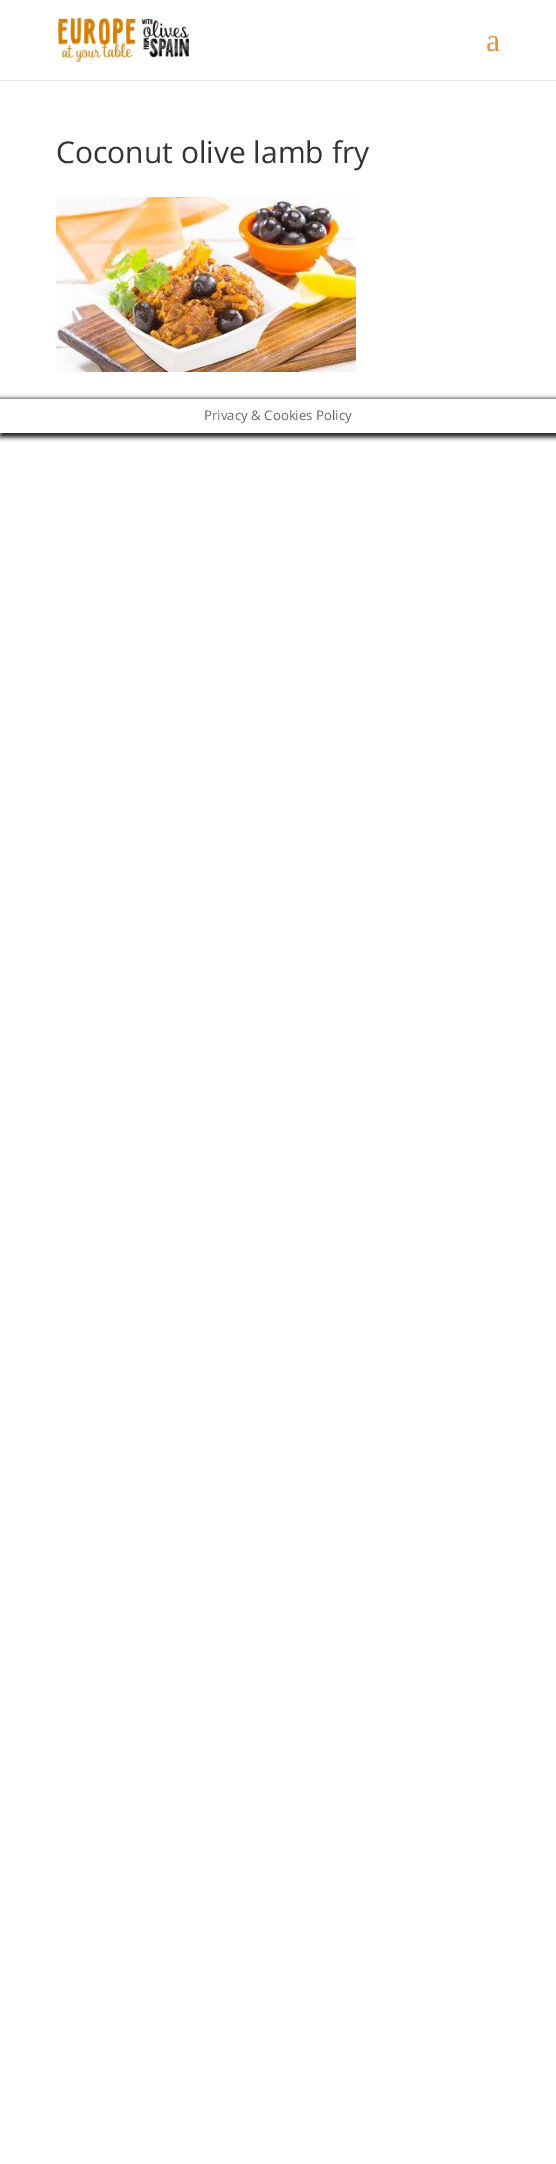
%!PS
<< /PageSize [556 2164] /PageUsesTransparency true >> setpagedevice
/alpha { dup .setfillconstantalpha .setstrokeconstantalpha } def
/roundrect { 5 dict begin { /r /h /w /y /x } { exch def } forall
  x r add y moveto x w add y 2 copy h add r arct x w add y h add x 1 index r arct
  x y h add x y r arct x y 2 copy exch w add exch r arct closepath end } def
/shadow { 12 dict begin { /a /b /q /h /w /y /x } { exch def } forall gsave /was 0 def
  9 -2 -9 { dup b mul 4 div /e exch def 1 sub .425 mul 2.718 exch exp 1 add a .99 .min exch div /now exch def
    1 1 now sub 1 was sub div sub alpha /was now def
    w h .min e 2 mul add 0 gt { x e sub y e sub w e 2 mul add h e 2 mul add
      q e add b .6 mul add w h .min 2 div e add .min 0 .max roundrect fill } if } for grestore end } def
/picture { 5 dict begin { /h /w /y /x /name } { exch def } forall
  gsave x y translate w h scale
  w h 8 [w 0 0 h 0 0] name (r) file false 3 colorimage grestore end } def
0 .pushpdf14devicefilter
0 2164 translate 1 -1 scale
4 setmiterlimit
1 setgray
0 0 556 2164 rectfill
0.902 setgray
0 80 556 1 rectfill
(img1.rgb) 58 18 131 44 picture
/LiberationSerif-Regular [32 0 0 -32 0 0] selectfont
0.871 0.596 0.2 setrgbcolor
486 51 moveto (a) show
/OpenSans-Regular [30 0 0 -30 0 0] selectfont
0.2 setgray
56 163 moveto (Coconut olive lamb fry) show
(img2.rgb) 56 197 300 175 picture
gsave
newpath 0 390 moveto 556 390 lineto 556 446 lineto 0 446 lineto closepath 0 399 moveto 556 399 lineto 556 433 lineto 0 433 lineto closepath eoclip newpath
0.086 setgray
0 399 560 38 0 2.5 1 shadow
grestore
/OpenSans-Regular [13.25 0 0 -13.25 0 0] selectfont
0.4 setgray
204 420 moveto (Privacy & Cookies Policy) show
.poppdf14devicefilter showpage
